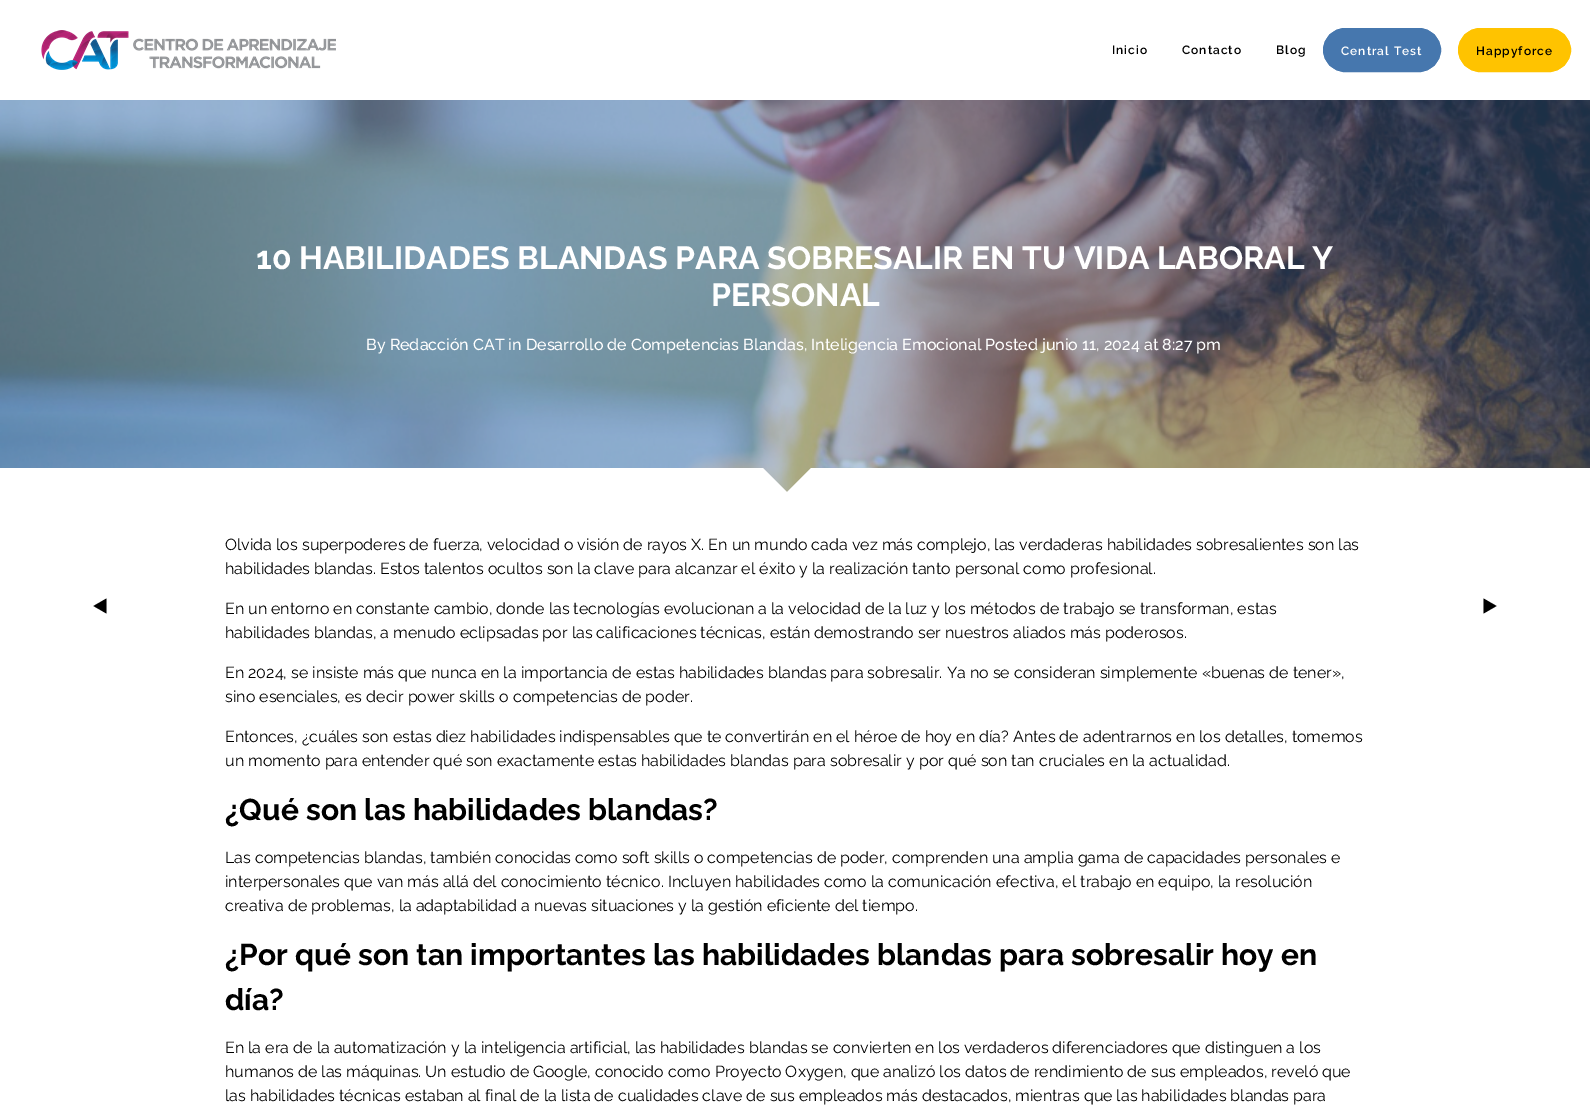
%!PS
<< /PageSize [1590 1108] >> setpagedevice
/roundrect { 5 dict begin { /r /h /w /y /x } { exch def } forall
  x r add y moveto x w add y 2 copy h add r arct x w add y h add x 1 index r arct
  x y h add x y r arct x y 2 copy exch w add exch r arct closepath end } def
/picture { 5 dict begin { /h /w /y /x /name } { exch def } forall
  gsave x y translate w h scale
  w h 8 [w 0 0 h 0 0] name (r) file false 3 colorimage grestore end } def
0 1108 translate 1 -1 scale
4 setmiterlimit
1 setgray
0 0 1590 1108 rectfill
(img1.rgb) 41 30 295 40 picture
/Raleway-SemiBold [12 0 0 -12 0 0] selectfont
0 setgray
1112 54 moveto 1 0 (Inicio) ashow
1182 54 moveto 1 0 (Contacto) ashow
1276 54 moveto 1 0 (Blog) ashow
0.275 0.467 0.682 setrgbcolor
1323.5 28.5 117 43 21.5 roundrect gsave fill grestore
stroke
1 setgray
1341 55 moveto 1 0 (Central Test) ashow
1 0.765 0 setrgbcolor
1458.5 28.5 112 43 21.5 roundrect gsave fill grestore
stroke
0 setgray
1476 55 moveto 1 0 (Happyforce) ashow
(img2.rgb) 0 100 1590 392 picture
/Raleway-Bold [32 0 0 -32 0 0] selectfont
1 setgray
256 269 moveto (10 HABILIDADES BLANDAS PARA SOBRESALIR EN TU VIDA LABORAL Y) show
711 306 moveto (PERSONAL) show
/Raleway-Medium [16 0 0 -16 0 0] selectfont
366 350 moveto (By Redacción CAT in Desarrollo de Competencias Blandas, Inteligencia Emocional Posted junio 11, 2024 at 8:27 pm) show
newpath -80 468 moveto 763 468 lineto 795 500 lineto -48 500 lineto closepath fill
newpath 811 468 moveto 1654 468 lineto 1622 500 lineto 779 500 lineto closepath fill
0 setgray
newpath 106.5 598.5 moveto 93.5 606 lineto 106.5 613.5 lineto closepath fill
/Raleway-Regular [16 0 0 -16 0 0] selectfont
225 550 moveto (Olvida los superpoderes de fuerza, velocidad o visión de rayos X. En un mundo cada vez más complejo, las verdaderas habilidades sobresalientes son las) show
225 574 moveto (habilidades blandas. Estos talentos ocultos son la clave para alcanzar el éxito y la realización tanto personal como profesional.) show
225 614 moveto (En un entorno en constante cambio, donde las tecnologías evolucionan a la velocidad de la luz y los métodos de trabajo se transforman, estas) show
225 638 moveto (habilidades blandas, a menudo eclipsadas por las calificaciones técnicas, están demostrando ser nuestros aliados más poderosos.) show
225 678 moveto (En 2024, se insiste más que nunca en la importancia de estas habilidades blandas para sobresalir. Ya no se consideran simplemente «buenas de tener»,) show
225 702 moveto (sino esenciales, es decir power skills o competencias de poder.) show
225 742 moveto (Entonces, ¿cuáles son estas diez habilidades indispensables que te convertirán en el héroe de hoy en día? Antes de adentrarnos en los detalles, tomemos) show
225 766 moveto (un momento para entender qué son exactamente estas habilidades blandas para sobresalir y por qué son tan cruciales en la actualidad.) show
/Raleway-Bold [30 0 0 -30 0 0] selectfont
225 820 moveto (¿Qué son las habilidades blandas?) show
/Raleway-Regular [16 0 0 -16 0 0] selectfont
225 863 moveto (Las competencias blandas, también conocidas como soft skills o competencias de poder, comprenden una amplia gama de capacidades personales e) show
225 887 moveto (interpersonales que van más allá del conocimiento técnico. Incluyen habilidades como la comunicación efectiva, el trabajo en equipo, la resolución) show
225 911 moveto (creativa de problemas, la adaptabilidad a nuevas situaciones y la gestión eficiente del tiempo.) show
/Raleway-Bold [30 0 0 -30 0 0] selectfont
225 965 moveto (¿Por qué son tan importantes las habilidades blandas para sobresalir hoy en) show
225 1010 moveto (día?) show
/Raleway-Regular [16 0 0 -16 0 0] selectfont
225 1053 moveto (En la era de la automatización y la inteligencia artificial, las habilidades blandas se convierten en los verdaderos diferenciadores que distinguen a los) show
225 1077 moveto (humanos de las máquinas. Un estudio de Google, conocido como Proyecto Oxygen, que analizó los datos de rendimiento de sus empleados, reveló que) show
225 1101 moveto (las habilidades técnicas estaban al final de la lista de cualidades clave de sus empleados más destacados, mientras que las habilidades blandas para) show
newpath 1483.5 598.5 moveto 1483.5 613.5 lineto 1496.5 606 lineto closepath fill
showpage
